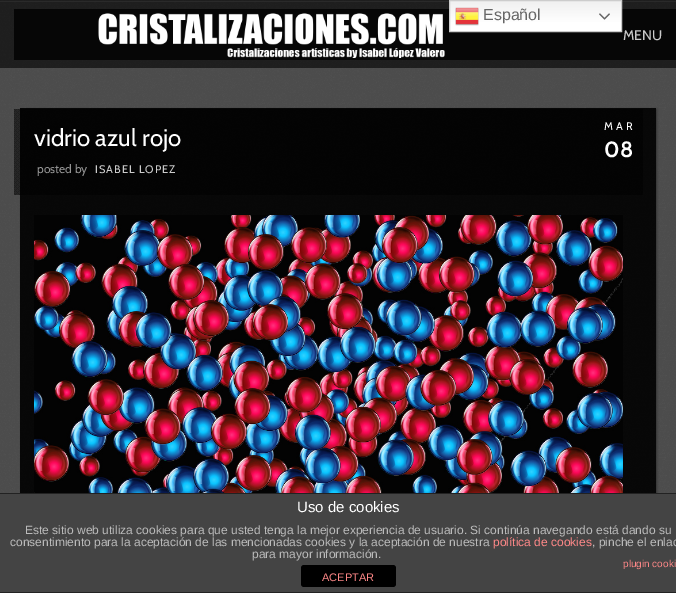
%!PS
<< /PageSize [676 593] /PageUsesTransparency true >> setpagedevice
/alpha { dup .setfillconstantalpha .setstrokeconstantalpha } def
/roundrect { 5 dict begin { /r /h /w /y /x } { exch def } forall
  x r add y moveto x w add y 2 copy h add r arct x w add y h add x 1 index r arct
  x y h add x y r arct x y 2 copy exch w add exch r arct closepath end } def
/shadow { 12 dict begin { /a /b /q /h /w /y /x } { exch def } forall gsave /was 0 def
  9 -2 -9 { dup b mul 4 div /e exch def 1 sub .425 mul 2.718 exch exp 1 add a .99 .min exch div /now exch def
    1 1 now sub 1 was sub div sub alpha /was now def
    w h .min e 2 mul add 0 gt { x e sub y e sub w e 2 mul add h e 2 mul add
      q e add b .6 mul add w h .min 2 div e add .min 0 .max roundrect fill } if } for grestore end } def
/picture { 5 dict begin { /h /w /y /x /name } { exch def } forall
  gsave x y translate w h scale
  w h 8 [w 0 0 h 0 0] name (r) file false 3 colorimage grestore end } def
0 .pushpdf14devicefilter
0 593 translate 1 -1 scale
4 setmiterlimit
0.416 setgray
0 0 676 593 rectfill
(img1.rgb) 0 0 676 493 picture
0.6 alpha
0 setgray
0 0 676 68 rectfill
1 alpha
0.165 setgray
0 1 676 1 rectfill
0.024 setgray
14 9 662 51 rectfill
gsave newpath 450 1 moveto 621 1 lineto 621 31 lineto 450 31 lineto closepath clip newpath
<< /ShadingType 2 /ColorSpace /DeviceRGB /Coords [536 0 536 32] /Extend [true true] /Function << /FunctionType 3 /Domain [0 1] /Functions [<< /FunctionType 2 /Domain [0 1] /C0 [0.937 0.937 0.937] /C1 [1 1 1] /N 1 >> << /FunctionType 2 /Domain [0 1] /C0 [1 1 1] /C1 [1 1 1] /N 1 >>] /Bounds [0.7] /Encode [0 1 0 1] >> >> shfill grestore
0.8 setgray
449.5 0.5 172 31 rectstroke
(img2.rgb) 455 7 24 19 picture
/LiberationSans-Regular [16 0 0 -16 0 0] selectfont
0.4 setgray
483 20 moveto (Español) show
(img3.rgb) 599 13 11 7 picture
(img4.rgb) 98 13 347 45 picture
/Cabin-Regular [14 0 0 -14 0 0] selectfont
0.796 setgray
623 40 moveto (MENU) show
gsave
newpath 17 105 moveto 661 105 lineto 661 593 lineto 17 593 lineto closepath 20 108 moveto 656 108 lineto 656 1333 lineto 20 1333 lineto closepath eoclip newpath
0.169 setgray
21 109 636 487 0 1 0.8 shadow
grestore
0.9 alpha
0 setgray
20 108 636 385 rectfill
0.5 alpha
14 109 629 86 rectfill
1 alpha
(img5.rgb) 14 109 6 86 picture
/Cabin-Regular [24 0 0 -24 0 0] selectfont
1 setgray
34 146 moveto (vidrio azul rojo) show
/Cabin-Regular [12 0 0 -12 0 0] selectfont
0.58 setgray
37 173 moveto (posted by) show
/Cabin-Regular [11 0 0 -11 0 0] selectfont
0.796 setgray
95 173 moveto 1 0 (ISABEL LOPEZ) ashow
1 setgray
604 130 moveto 3 0 (MAR) ashow
/Cabin-Bold [22 0 0 -22 0 0] selectfont
604 157 moveto (08) show
(img6.rgb) 34 215 589 278 picture
0.267 setgray
0 494 676 98 rectfill
0.133 setgray
0 493 676 1 rectfill
0 592 676 1 rectfill
/LiberationSans-Regular [15 0 0 -15 0 0] selectfont
1 setgray
297 512 moveto (Uso de cookies) show
/LiberationSans-Regular [12 0 0 -12 0 0] selectfont
0.733 setgray
25 534 moveto (Este sitio web utiliza cookies para que usted tenga la mejor experiencia de usuario. Si continúa navegando está dando su) show
10 546 moveto (consentimiento para la aceptación de las mencionadas cookies y la aceptación de nuestra) show
1 0.533 0.533 setrgbcolor
493 546 moveto (política de cookies) show
0.733 setgray
592 546 moveto (, pinche el enlac) show
252 558 moveto (para mayor información.) show
/LiberationSans-Regular [10 0 0 -10 0 0] selectfont
1 0.533 0.533 setrgbcolor
623 567 moveto (plugin cooki) show
0 setgray
301 565 95 22 3 roundrect fill
/LiberationSans-Regular [11 0 0 -11 0 0] selectfont
1 0.533 0.533 setrgbcolor
322 581 moveto (ACEPTAR) show
.poppdf14devicefilter showpage
